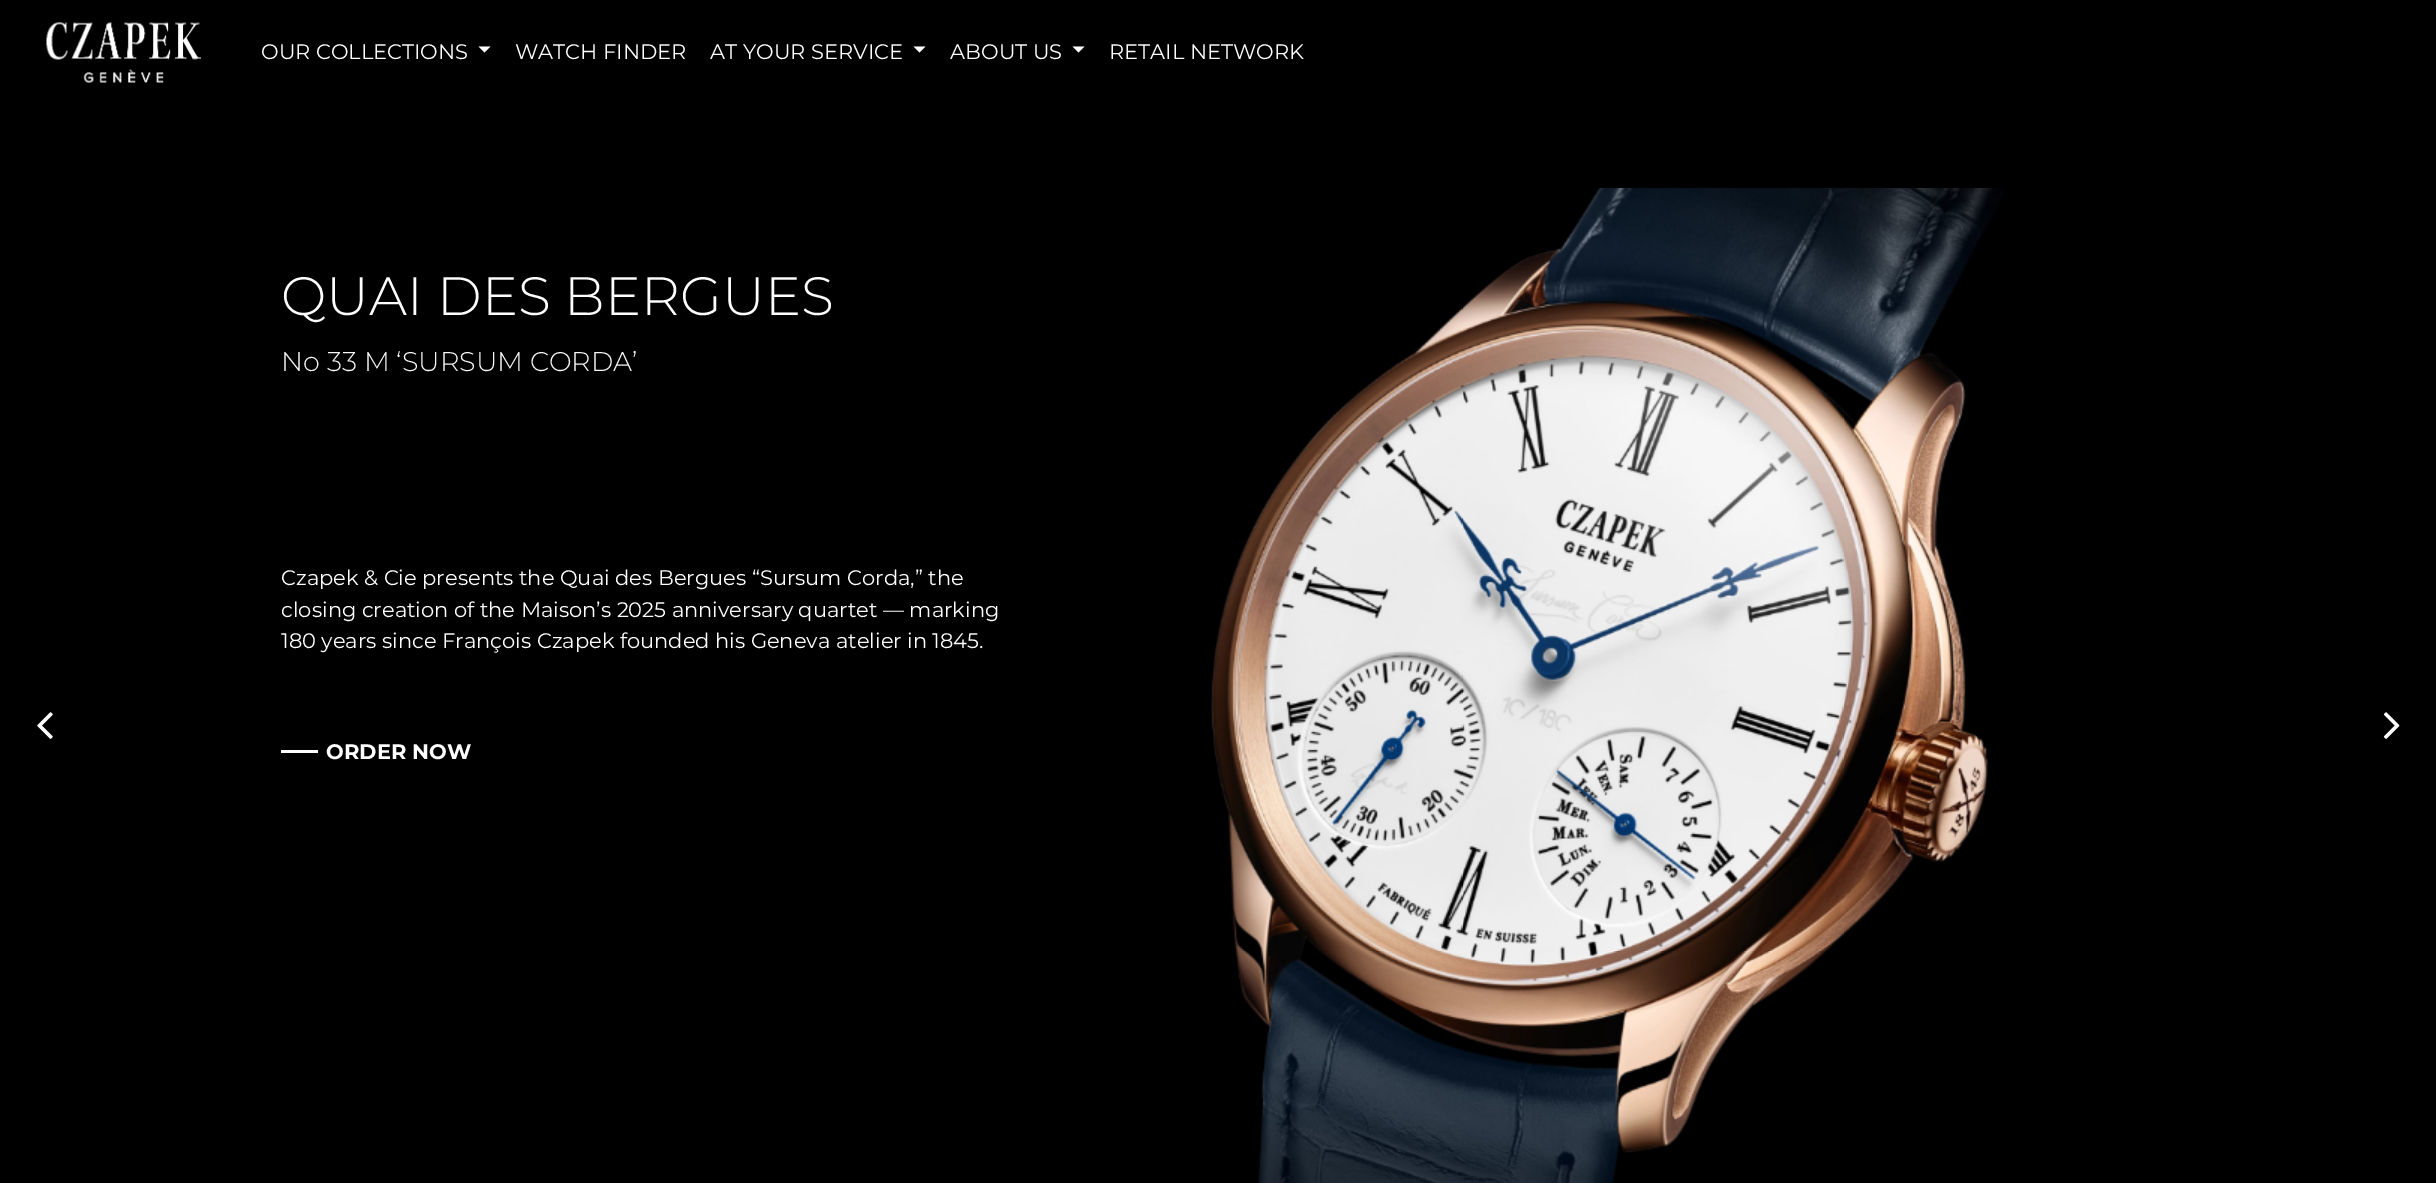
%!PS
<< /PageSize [2436 1183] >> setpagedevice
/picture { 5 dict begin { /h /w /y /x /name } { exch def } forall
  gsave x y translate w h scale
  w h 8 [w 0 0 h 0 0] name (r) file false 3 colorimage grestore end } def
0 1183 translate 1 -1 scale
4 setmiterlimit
0 setgray
0 0 2436 1183 rectfill
(img1.rgb) 46 22 155 61 picture
/Montserrat-Regular [21 0 0 -21 0 0] selectfont
1 setgray
261 59 moveto (OUR COLLECTIONS) show
newpath 478.5 46.5 moveto 490.5 46.5 lineto 484.5 52.5 lineto closepath fill
515 59 moveto (WATCH FINDER) show
710 59 moveto (AT YOUR SERVICE) show
newpath 913.5 46.5 moveto 925.5 46.5 lineto 919.5 52.5 lineto closepath fill
950 59 moveto (ABOUT US) show
newpath 1072.5 46.5 moveto 1084.5 46.5 lineto 1078.5 52.5 lineto closepath fill
1109 59 moveto (RETAIL NETWORK) show
(img2.rgb) 37 712 16 27 picture
/Montserrat-Light [54 0 0 -54 0 0] selectfont
281 315 moveto (QUAI DES BERGUES) show
/Montserrat-Light [27 0 0 -27 0 0] selectfont
0.969 setgray
281 371 moveto (No 33 M ‘SURSUM CORDA’) show
/Montserrat-Regular [21 0 0 -21 0 0] selectfont
1 setgray
281 585 moveto (Czapek & Cie presents the Quai des Bergues “Sursum Corda,” the) show
281 617 moveto (closing creation of the Maison’s 2025 anniversary quartet — marking) show
281 648 moveto (180 years since François Czapek founded his Geneva atelier in 1845.) show
281 750 37 3 rectfill
/Montserrat-Bold [21 0 0 -21 0 0] selectfont
326 759 moveto (ORDER NOW) show
(img3.rgb) 1210 188 795 995 picture
(img4.rgb) 2383 712 17 27 picture
showpage
